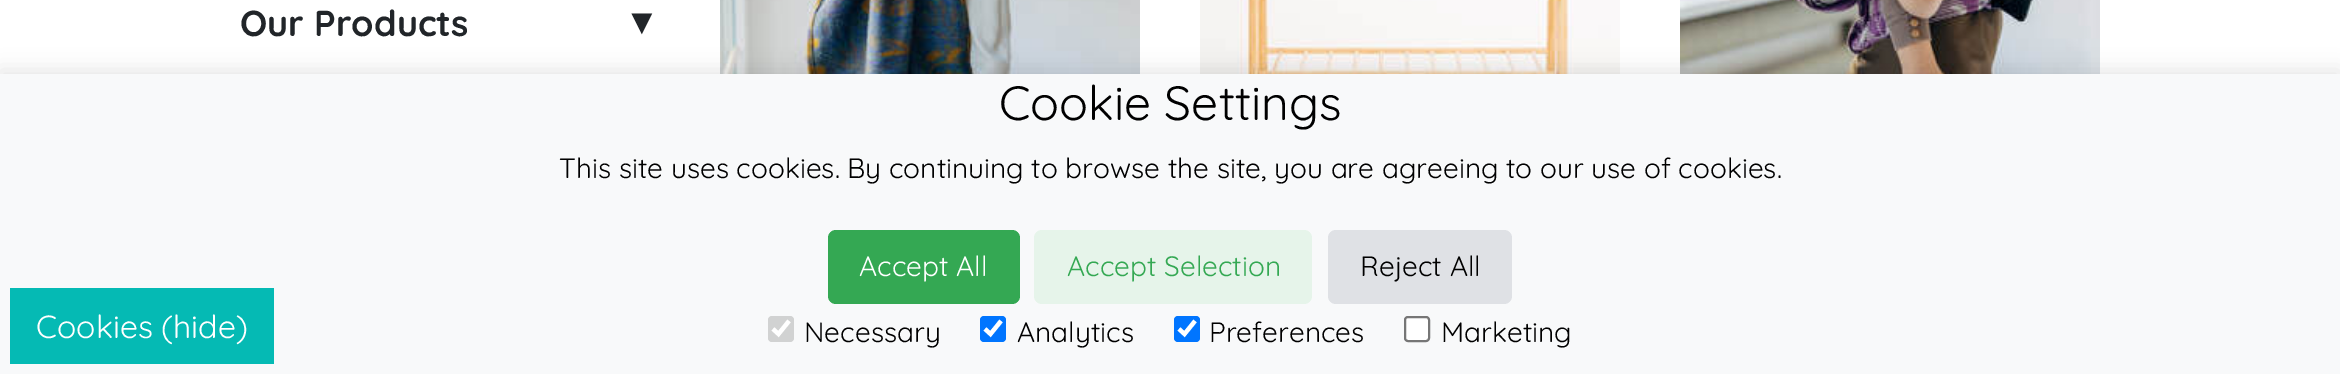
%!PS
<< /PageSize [2340 374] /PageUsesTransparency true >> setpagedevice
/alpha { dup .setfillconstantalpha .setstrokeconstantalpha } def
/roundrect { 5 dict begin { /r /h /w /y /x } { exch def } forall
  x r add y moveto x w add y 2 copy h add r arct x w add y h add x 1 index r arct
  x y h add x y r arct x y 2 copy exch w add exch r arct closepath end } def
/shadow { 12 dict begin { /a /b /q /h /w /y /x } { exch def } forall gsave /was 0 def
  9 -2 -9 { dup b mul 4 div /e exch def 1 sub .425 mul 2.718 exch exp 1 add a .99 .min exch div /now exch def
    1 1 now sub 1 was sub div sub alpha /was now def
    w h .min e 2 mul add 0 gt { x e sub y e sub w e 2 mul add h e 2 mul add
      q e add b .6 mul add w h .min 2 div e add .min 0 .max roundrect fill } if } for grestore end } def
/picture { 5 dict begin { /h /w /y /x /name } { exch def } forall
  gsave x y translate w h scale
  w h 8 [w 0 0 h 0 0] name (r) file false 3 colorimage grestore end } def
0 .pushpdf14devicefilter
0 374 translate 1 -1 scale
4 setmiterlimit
1 setgray
0 0 2340 374 rectfill
/Quicksand-Bold [36 0 0 -36 0 0] selectfont
0.129 0.145 0.161 setrgbcolor
240 36 moveto (Our Products) show
/LiberationSans-Bold [36 0 0 -36 0 0] selectfont
624 34 moveto (▼) show
(img1.rgb) 720 0 420 74 picture
(img2.rgb) 1200 0 420 74 picture
(img3.rgb) 1680 0 420 74 picture
0 setgray
0 70 2340 300 0 10 0.1 shadow
0.973 0.976 0.98 setrgbcolor
0 74 2340 300 rectfill
0.02 0.729 0.706 setrgbcolor
10 288 264 76 rectfill
/Quicksand-Regular [32 0 0 -32 0 0] selectfont
1 setgray
36 338 moveto (Cookies \(hide\)) show
/Quicksand-Regular [48 0 0 -48 0 0] selectfont
0 setgray
999 120 moveto (Cookie Settings) show
/Quicksand-Regular [28 0 0 -28 0 0] selectfont
559 178 moveto (This site uses cookies. By continuing to browse the site, you are agreeing to our use of cookies.) show
0.204 0.659 0.325 setrgbcolor
828 230 192 74 8 roundrect fill
1 setgray
859 276 moveto (Accept All) show
0.902 0.957 0.918 setrgbcolor
1034 230 278 74 8 roundrect fill
0.204 0.659 0.325 setrgbcolor
1067 276 moveto (Accept Selection) show
0.875 0.882 0.898 setrgbcolor
1328 230 184 74 8 roundrect fill
0 setgray
1360 276 moveto (Reject All) show
0.82 0.824 0.824 setrgbcolor
768 316 26 26 4 roundrect fill
1 setgray
4.2 setlinewidth
newpath 773 329 moveto 778.5 334 lineto 789 321 lineto stroke
0 setgray
804 342 moveto (Necessary) show
0 0.459 1 setrgbcolor
980 316 26 26 4 roundrect fill
1 setgray
newpath 985 329 moveto 990.5 334 lineto 1001 321 lineto stroke
0 setgray
1017 342 moveto (Analytics) show
0 0.459 1 setrgbcolor
1174 316 26 26 4 roundrect fill
1 setgray
newpath 1179 329 moveto 1184.5 334 lineto 1195 321 lineto stroke
0 setgray
1209 342 moveto (Preferences) show
1 setgray
1405 317 24 24 3 roundrect gsave fill grestore
0.463 setgray
2 setlinewidth
stroke
0 setgray
1441 342 moveto (Marketing) show
.poppdf14devicefilter showpage
